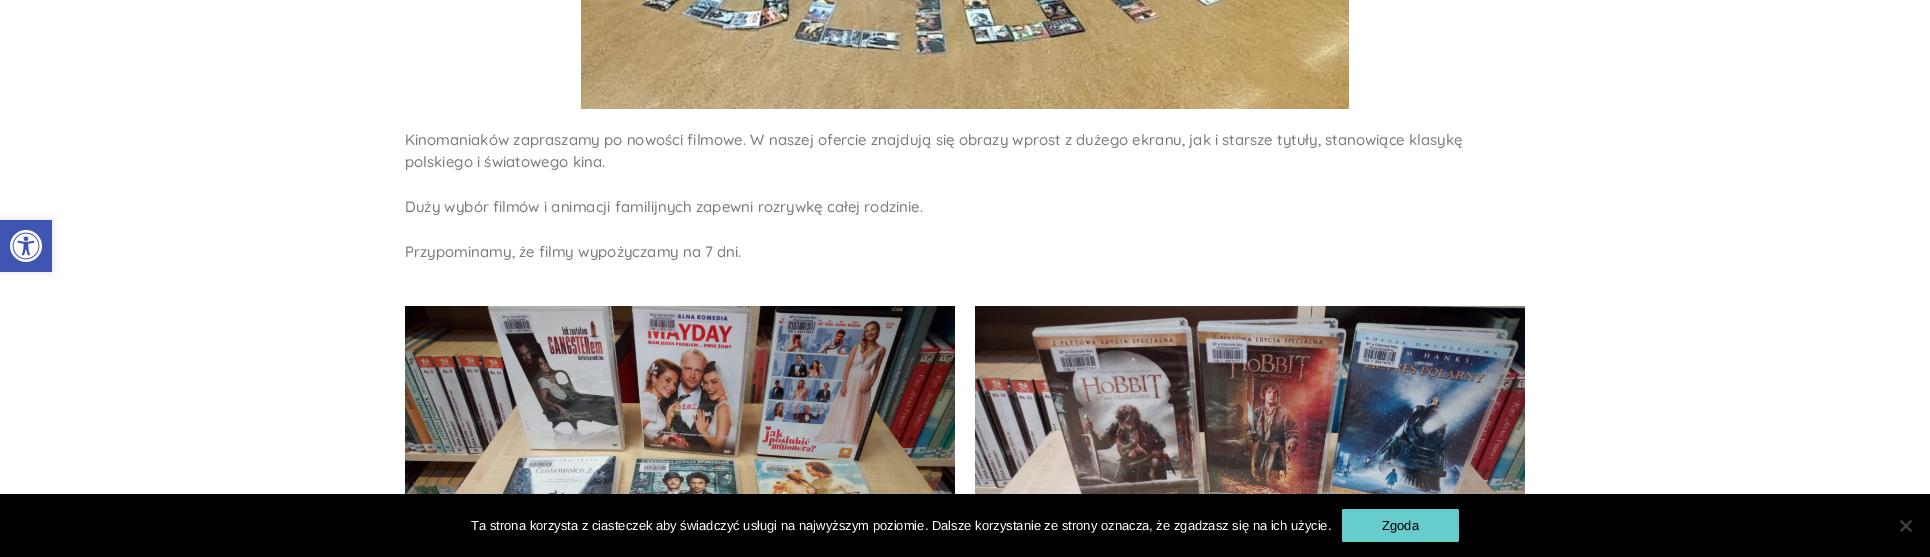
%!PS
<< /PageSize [1930 557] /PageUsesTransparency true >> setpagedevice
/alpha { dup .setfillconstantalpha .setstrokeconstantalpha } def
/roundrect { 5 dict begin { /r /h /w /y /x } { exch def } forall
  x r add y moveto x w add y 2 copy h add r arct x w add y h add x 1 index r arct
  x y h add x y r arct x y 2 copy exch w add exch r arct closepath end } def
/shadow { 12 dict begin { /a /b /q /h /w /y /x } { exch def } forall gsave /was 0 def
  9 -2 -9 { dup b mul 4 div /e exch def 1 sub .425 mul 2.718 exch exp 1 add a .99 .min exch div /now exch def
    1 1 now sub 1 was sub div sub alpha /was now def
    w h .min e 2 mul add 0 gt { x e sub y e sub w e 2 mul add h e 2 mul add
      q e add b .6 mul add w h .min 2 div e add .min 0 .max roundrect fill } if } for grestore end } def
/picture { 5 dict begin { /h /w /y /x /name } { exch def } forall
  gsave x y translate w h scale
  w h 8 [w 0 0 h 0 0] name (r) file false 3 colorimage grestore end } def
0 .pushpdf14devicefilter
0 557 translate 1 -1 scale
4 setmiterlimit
1 setgray
0 0 1930 557 rectfill
0 setgray
0 220 52 52 0 5 0.1 shadow
0.251 0.329 0.698 setrgbcolor
0 220 52 52 rectfill
(img1.rgb) 10 230 32 32 picture
(img2.rgb) 581 0 768 109 picture
/Quicksand-Medium [15 0 0 -15 0 0] selectfont
0.478 setgray
405 145 moveto (Kinomaniaków zapraszamy po nowości filmowe. W naszej ofercie znajdują się obrazy wprost z dużego ekranu, jak i starsze tytuły, stanowiące klasykę) show
405 167 moveto (polskiego i światowego kina.) show
405 212 moveto (Duży wybór filmów i animacji familijnych zapewni rozrywkę całej rodzinie.) show
405 257 moveto (Przypominamy, że filmy wypożyczamy na 7 dni.) show
(img3.rgb) 405 306 550 188 picture
(img4.rgb) 975 306 550 188 picture
0 setgray
0 494 1930 63 rectfill
/LiberationSans-Regular [13 0 0 -13 0 0] selectfont
1 setgray
471 530 moveto (Ta strona korzysta z ciasteczek aby świadczyć usługi na najwyższym poziomie. Dalsze korzystanie ze strony oznacza, że zgadzasz się na ich użycie.) show
0.4 0.8 0.8 setrgbcolor
1342 509 117 33 2 roundrect fill
0 setgray
1382 530 moveto (Zgoda) show
0.251 setgray
newpath 1910.5 520 moveto 1912 521.5 lineto 1901.5 532 lineto 1900 530.5 lineto closepath fill
newpath 1900 521.5 moveto 1901.5 520 lineto 1912 530.5 lineto 1910.5 532 lineto closepath fill
.poppdf14devicefilter showpage
